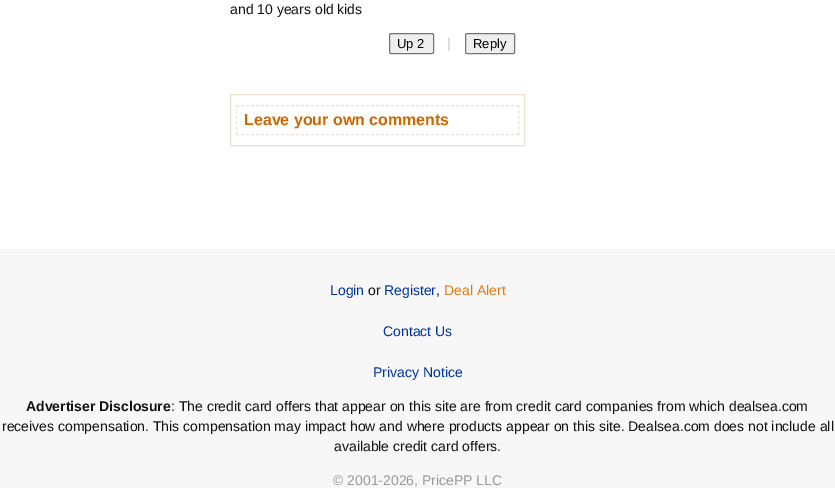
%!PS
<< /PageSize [835 488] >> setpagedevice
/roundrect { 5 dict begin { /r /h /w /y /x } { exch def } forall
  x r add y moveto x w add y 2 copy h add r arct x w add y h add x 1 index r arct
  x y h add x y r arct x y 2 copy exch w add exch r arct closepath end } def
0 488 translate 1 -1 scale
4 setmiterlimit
1 setgray
0 0 835 488 rectfill
/LiberationSans-Regular [14 0 0 -14 0 0] selectfont
0.067 setgray
230 14 moveto (and 10 years old kids) show
0.937 setgray
389.5 33.5 44 20 1.5 roundrect gsave fill grestore
0.463 setgray
stroke
/LiberationSans-Regular [13 0 0 -13 0 0] selectfont
0 setgray
397 48 moveto (Up 2) show
/LiberationSans-Regular [14 0 0 -14 0 0] selectfont
0.8 setgray
447 48 moveto (|) show
0.937 setgray
465.5 33.5 49 20 1.5 roundrect gsave fill grestore
0.463 setgray
stroke
/LiberationSans-Regular [13 0 0 -13 0 0] selectfont
0 setgray
473 48 moveto (Reply) show
0.922 0.886 0.824 setrgbcolor
230.5 94.5 294 51 rectstroke
0.906 0.89 0.859 setrgbcolor
[3 2] 0 setdash
newpath 236 105.5 moveto 519 105.5 lineto stroke
[3 2.4] 0 setdash
newpath 518.5 105 moveto 518.5 135 lineto stroke
[3 2] 0 setdash
newpath 236 134.5 moveto 519 134.5 lineto stroke
[3 2.4] 0 setdash
newpath 236.5 105 moveto 236.5 135 lineto stroke
/LiberationSans-Bold [16 0 0 -16 0 0] selectfont
0.8 0.4 0 setrgbcolor
244 125 moveto (Leave your own comments) show
0.969 setgray
0 249 835 239 rectfill
/LiberationSans-Regular [14 0 0 -14 0 0] selectfont
0 0.2 0.6 setrgbcolor
330 295 moveto (Login) show
0.067 setgray
368 295 moveto (or) show
0 0.2 0.6 setrgbcolor
384 295 moveto (Register) show
0.067 setgray
436 295 moveto (,) show
0.894 0.475 0.067 setrgbcolor
444 295 moveto (Deal Alert) show
0 0.2 0.6 setrgbcolor
383 336 moveto (Contact Us) show
373 377 moveto (Privacy Notice) show
/LiberationSans-Bold [14 0 0 -14 0 0] selectfont
0.067 setgray
26 411 moveto (Advertiser Disclosure) show
/LiberationSans-Regular [14 0 0 -14 0 0] selectfont
171 411 moveto (: The credit card offers that appear on this site are from credit card companies from which dealsea.com) show
2 431 moveto (receives compensation. This compensation may impact how and where products appear on this site. Dealsea.com does not include all) show
334 451 moveto (available credit card offers.) show
0.6 setgray
333 485 moveto (© 2001-2026, PricePP LLC) show
showpage
